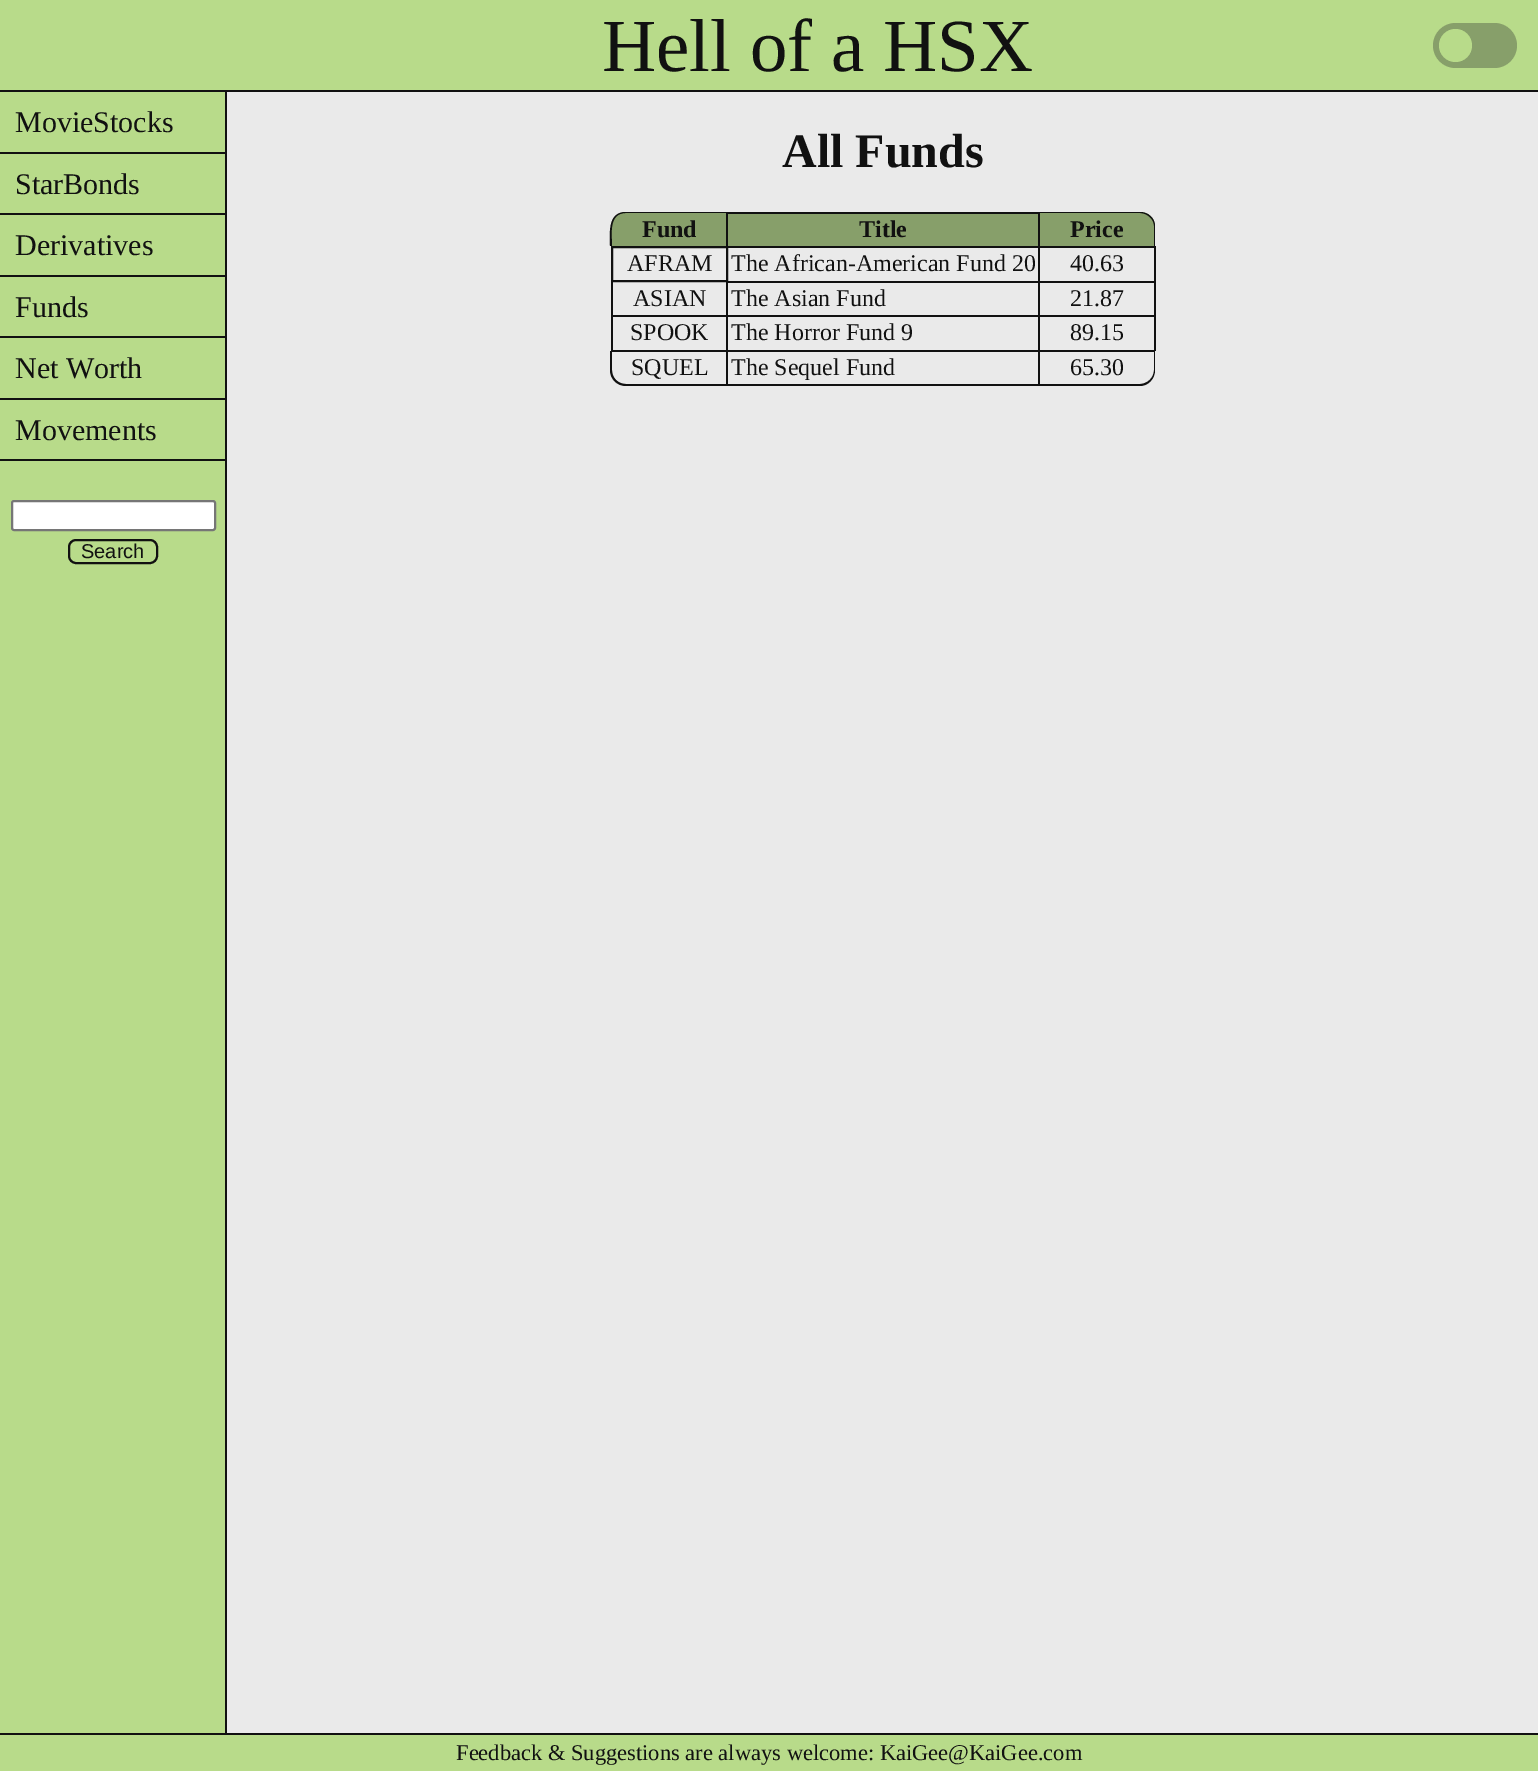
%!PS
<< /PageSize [1538 1771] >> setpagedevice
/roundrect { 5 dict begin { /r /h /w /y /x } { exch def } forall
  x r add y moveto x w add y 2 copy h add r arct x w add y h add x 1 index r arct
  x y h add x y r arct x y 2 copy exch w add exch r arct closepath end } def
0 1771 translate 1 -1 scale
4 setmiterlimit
0.918 setgray
0 0 1538 1771 rectfill
0.722 0.859 0.541 setrgbcolor
0 0 1538 90 rectfill
0.067 setgray
0 90 1538 2 rectfill
/LiberationSerif-Regular [75 0 0 -75 0 0] selectfont
602 71 moveto (Hell of a HSX) show
0.529 0.624 0.416 setrgbcolor
1433 23 84 45 22.5 roundrect fill
0.722 0.859 0.541 setrgbcolor
newpath 1455.5 45.5 16.5 0 360 arc closepath fill
0 92 225 1641 rectfill
0.067 setgray
225 92 2 1641 rectfill
0 152 225 2 rectfill
/LiberationSerif-Regular [30 0 0 -30 0 0] selectfont
15 132 moveto (MovieStocks) show
0 213 225 2 rectfill
15 194 moveto (StarBonds) show
0 275 225 2 rectfill
15 255 moveto (Derivatives) show
0 336 225 2 rectfill
15 317 moveto (Funds) show
0 398 225 2 rectfill
15 378 moveto (Net Worth) show
0 459 225 2 rectfill
15 440 moveto (Movements) show
1 setgray
12 501 203 29 2 roundrect gsave fill grestore
0.463 setgray
2 setlinewidth
stroke
0.067 setgray
69 540 88 23 7 roundrect stroke
/LiberationSans-Regular [20 0 0 -20 0 0] selectfont
81 558 moveto (Search) show
/LiberationSerif-Bold [48 0 0 -48 0 0] selectfont
782 167 moveto (All Funds) show
0.529 0.624 0.416 setrgbcolor
newpath 626 212 moveto 728 212 lineto 728 246 lineto 611 246 lineto 611 227 lineto 611 218.5 617.5 212 626 212 curveto closepath fill
0.067 setgray
newpath 626 212 moveto 728 212 lineto 728 246 lineto 610 246 lineto 610 234 607 212 626 212 curveto closepath 626 213 moveto 726 213 lineto 726 246 lineto 612 246 lineto 612 235 608 213 626 213 curveto closepath eofill
/LiberationSerif-Bold [24 0 0 -24 0 0] selectfont
642 237 moveto (Fund) show
0.529 0.624 0.416 setrgbcolor
728 214 310 32 rectfill
0.067 setgray
728 212 312 2 rectfill
1038 212 2 34 rectfill
859 237 moveto (Title) show
0.529 0.624 0.416 setrgbcolor
newpath 1040 212 moveto 1140 212 lineto 1148.5 212 1155 218.5 1155 227 curveto 1155 246 lineto 1040 246 lineto closepath fill
0.067 setgray
newpath 1040 212 moveto 1140 212 lineto 1148 212 1155 218 1155 226 curveto 1155 246 lineto 1040 246 lineto closepath 1040 213 moveto 1140 213 lineto 1147 213 1154 219 1154 226 curveto 1154 246 lineto 1040 246 lineto closepath eofill
1070 237 moveto (Price) show
612 247 115 34 rectstroke
/LiberationSerif-Regular [24 0 0 -24 0 0] selectfont
627 271 moveto (AFRAM) show
728 246 427 2 rectfill
1038 246 2 36 rectfill
728 281 312 2 rectfill
731 271 moveto (The African-American Fund 20) show
1154 246 2 36 rectfill
1040 281 115 2 rectfill
1070 271 moveto (40.63) show
726 282 2 69 rectfill
611 315 117 2 rectfill
611 282 2 35 rectfill
633 306 moveto (ASIAN) show
1038 282 2 69 rectfill
728 315 312 2 rectfill
731 306 moveto (The Asian Fund) show
1154 282 2 69 rectfill
1040 315 115 2 rectfill
1070 306 moveto (21.87) show
611 350 544 2 rectfill
611 317 2 34 rectfill
630 340 moveto (SPOOK) show
731 340 moveto (The Horror Fund 9) show
1070 340 moveto (89.15) show
newpath 610 351 moveto 728 351 lineto 728 386 lineto 626 386 lineto 617 386 610 379 610 370 curveto closepath 612 351 moveto 726 351 lineto 726 384 lineto 626 384 lineto 618 384 612 378 612 370 curveto closepath eofill
631 375 moveto (SQUEL) show
1038 351 2 35 rectfill
728 384 312 2 rectfill
731 375 moveto (The Sequel Fund) show
newpath 1040 351 moveto 1155 351 lineto 1155 370 lineto 1155 379 1148 386 1140 386 curveto 1040 386 lineto closepath 1040 351 moveto 1154 351 lineto 1154 370 lineto 1154 378 1147 384 1140 384 curveto 1040 384 lineto closepath eofill
1070 375 moveto (65.30) show
0.722 0.859 0.541 setrgbcolor
0 1735 1538 36 rectfill
0.067 setgray
0 1733 1538 2 rectfill
/LiberationSerif-Regular [22.5 0 0 -22.5 0 0] selectfont
456 1760 moveto (Feedback & Suggestions are always welcome: KaiGee@KaiGee.com) show
showpage
